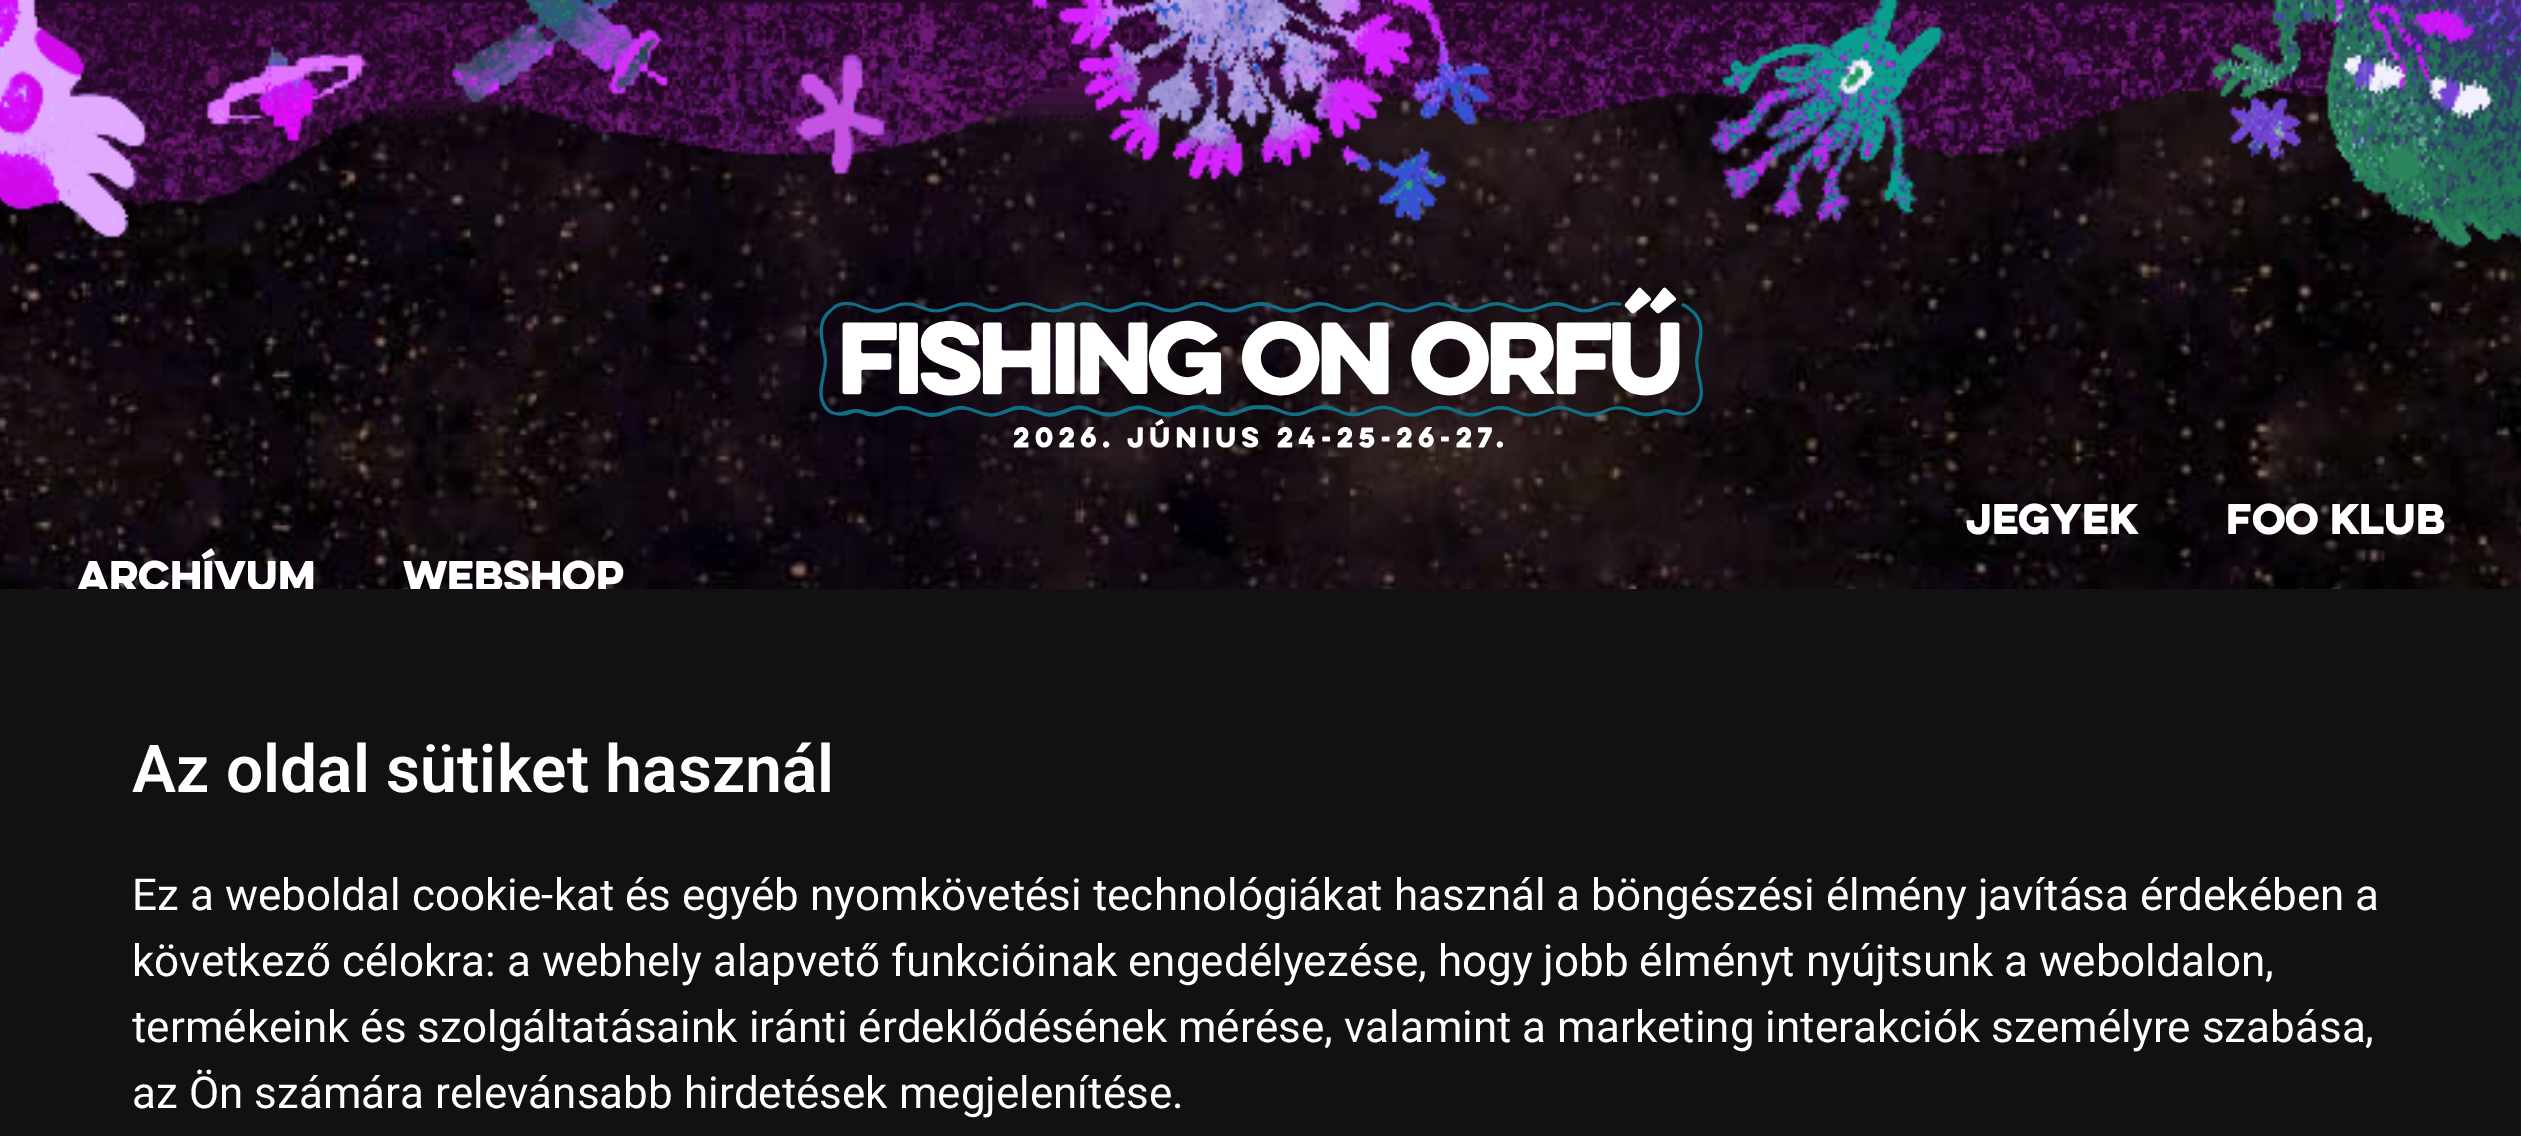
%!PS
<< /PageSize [2521 1136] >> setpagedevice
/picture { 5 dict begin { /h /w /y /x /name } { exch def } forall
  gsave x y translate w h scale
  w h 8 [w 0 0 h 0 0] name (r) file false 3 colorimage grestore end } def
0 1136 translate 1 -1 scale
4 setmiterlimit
1 setgray
0 0 2521 1136 rectfill
(img1.rgb) 0 0 2521 589 picture
(img2.rgb) 819 287 884 161 picture
/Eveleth-Regular [38.5 0 0 -38.5 0 0] selectfont
1966 534 moveto (Jegyek) show
2226 534 moveto (FOO Klub) show
77 591 moveto (Archívum) show
403 591 moveto (Webshop) show
0.067 setgray
0 589 2521 547 rectfill
/Roboto-SemiBold [66 0 0 -66 0 0] selectfont
1 setgray
132 792 moveto (Az oldal sütiket használ) show
/Roboto-Regular [44 0 0 -44 0 0] selectfont
132 910 moveto (Ez a weboldal cookie-kat és egyéb nyomkövetési technológiákat használ a böngészési élmény javítása érdekében a) show
132 976 moveto (következő célokra: a webhely alapvető funkcióinak engedélyezése, hogy jobb élményt nyújtsunk a weboldalon,) show
132 1042 moveto (termékeink és szolgáltatásaink iránti érdeklődésének mérése, valamint a marketing interakciók személyre szabása,) show
132 1108 moveto (az Ön számára relevánsabb hirdetések megjelenítése.) show
showpage
